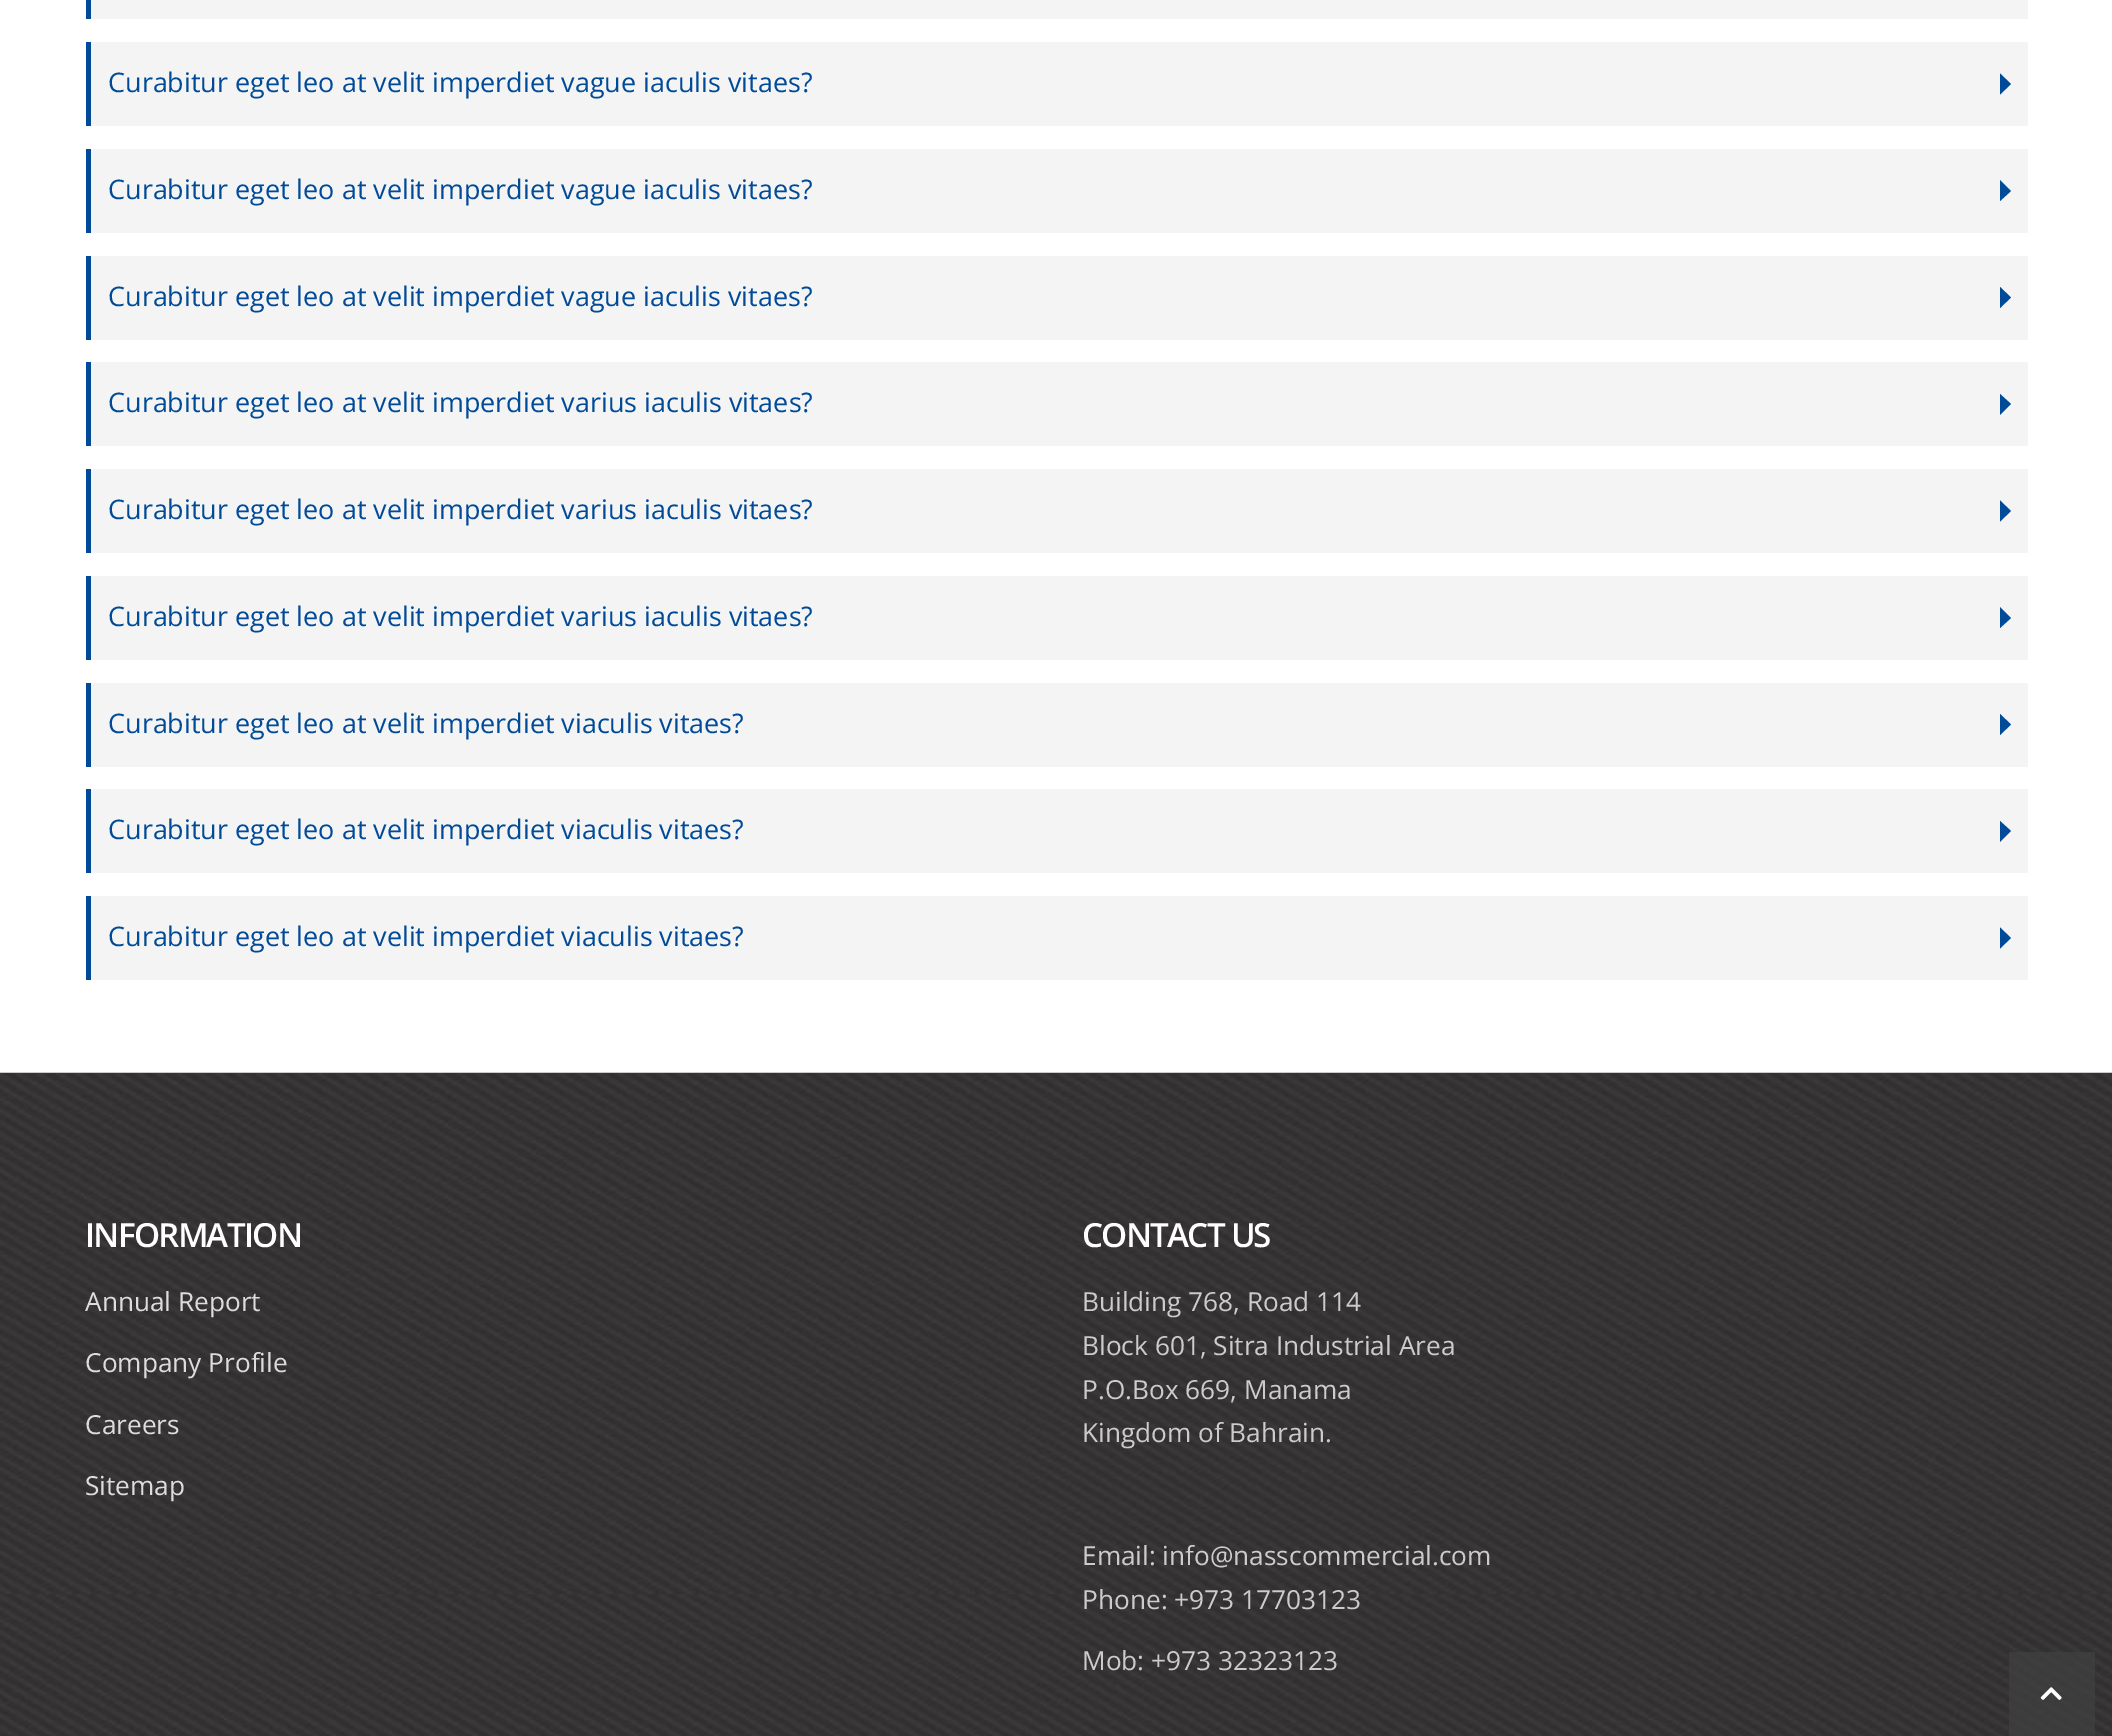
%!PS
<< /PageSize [2112 1736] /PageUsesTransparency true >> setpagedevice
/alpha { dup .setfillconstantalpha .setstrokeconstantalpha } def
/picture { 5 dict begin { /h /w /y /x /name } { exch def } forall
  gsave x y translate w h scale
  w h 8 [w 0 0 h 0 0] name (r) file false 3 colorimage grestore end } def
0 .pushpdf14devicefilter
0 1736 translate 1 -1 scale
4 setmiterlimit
1 setgray
0 0 2112 1736 rectfill
0.957 setgray
91 0 1937 19 rectfill
0 0.29 0.592 setrgbcolor
86 0 5 19 rectfill
0.957 setgray
91 42 1937 84 rectfill
0 0.29 0.592 setrgbcolor
86 42 5 84 rectfill
/OpenSans-Regular [26.95 0 0 -26.95 0 0] selectfont
108 92 moveto (Curabitur eget leo at velit imperdiet vague iaculis vitaes?) show
newpath 2000 94.5 moveto 2000 73.5 lineto 2011 84 lineto closepath fill
0.957 setgray
91 149 1937 84 rectfill
0 0.29 0.592 setrgbcolor
86 149 5 84 rectfill
108 199 moveto (Curabitur eget leo at velit imperdiet vague iaculis vitaes?) show
newpath 2000 201 moveto 2000 180 lineto 2011 191 lineto closepath fill
0.957 setgray
91 256 1937 84 rectfill
0 0.29 0.592 setrgbcolor
86 256 5 84 rectfill
108 306 moveto (Curabitur eget leo at velit imperdiet vague iaculis vitaes?) show
newpath 2000 308 moveto 2000 287 lineto 2011 297.5 lineto closepath fill
0.957 setgray
91 362 1937 84 rectfill
0 0.29 0.592 setrgbcolor
86 362 5 84 rectfill
108 412 moveto (Curabitur eget leo at velit imperdiet varius iaculis vitaes?) show
newpath 2000 415 moveto 2000 394 lineto 2011 404 lineto closepath fill
0.957 setgray
91 469 1937 84 rectfill
0 0.29 0.592 setrgbcolor
86 469 5 84 rectfill
108 519 moveto (Curabitur eget leo at velit imperdiet varius iaculis vitaes?) show
newpath 2000 521.5 moveto 2000 500.5 lineto 2011 511 lineto closepath fill
0.957 setgray
91 576 1937 84 rectfill
0 0.29 0.592 setrgbcolor
86 576 5 84 rectfill
108 626 moveto (Curabitur eget leo at velit imperdiet varius iaculis vitaes?) show
newpath 2000 628 moveto 2000 607 lineto 2011 618 lineto closepath fill
0.957 setgray
91 683 1937 84 rectfill
0 0.29 0.592 setrgbcolor
86 683 5 84 rectfill
108 733 moveto (Curabitur eget leo at velit imperdiet viaculis vitaes?) show
newpath 2000 735 moveto 2000 714 lineto 2011 724.5 lineto closepath fill
0.957 setgray
91 789 1937 84 rectfill
0 0.29 0.592 setrgbcolor
86 789 5 84 rectfill
108 839 moveto (Curabitur eget leo at velit imperdiet viaculis vitaes?) show
newpath 2000 842 moveto 2000 821 lineto 2011 831 lineto closepath fill
0.957 setgray
91 896 1937 84 rectfill
0 0.29 0.592 setrgbcolor
86 896 5 84 rectfill
108 946 moveto (Curabitur eget leo at velit imperdiet viaculis vitaes?) show
newpath 2000 948.5 moveto 2000 927.5 lineto 2011 938 lineto closepath fill
(img1.rgb) 0 1072 2112 664 picture
/OpenSans-SemiBold [33.25 0 0 -33.25 0 0] selectfont
1 setgray
85 1247 moveto -1.75 0 (INFORMATION) ashow
/OpenSans-Regular [26.25 0 0 -26.25 0 0] selectfont
0.867 setgray
85 1311 moveto (Annual Report) show
85 1372 moveto (Company Profile) show
85 1434 moveto (Careers) show
85 1495 moveto (Sitemap) show
/OpenSans-SemiBold [33.25 0 0 -33.25 0 0] selectfont
1 setgray
1082 1247 moveto -1.75 0 (CONTACT US) ashow
/OpenSans-Regular [26.25 0 0 -26.25 0 0] selectfont
0.8 setgray
1082 1311 moveto (Building 768, Road 114) show
1082 1355 moveto (Block 601, Sitra Industrial Area) show
1082 1399 moveto (P.O.Box 669, Manama) show
1082 1442 moveto (Kingdom of Bahrain.) show
1082 1565 moveto (Email: info@nasscommercial.com) show
1082 1609 moveto (Phone: +973 17703123) show
1082 1670 moveto (Mob: +973 32323123) show
0.75 alpha
0.251 setgray
2009 1652 86 84 rectfill
1 alpha
(img2.rgb) 2040 1687 22 13 picture
.poppdf14devicefilter showpage
